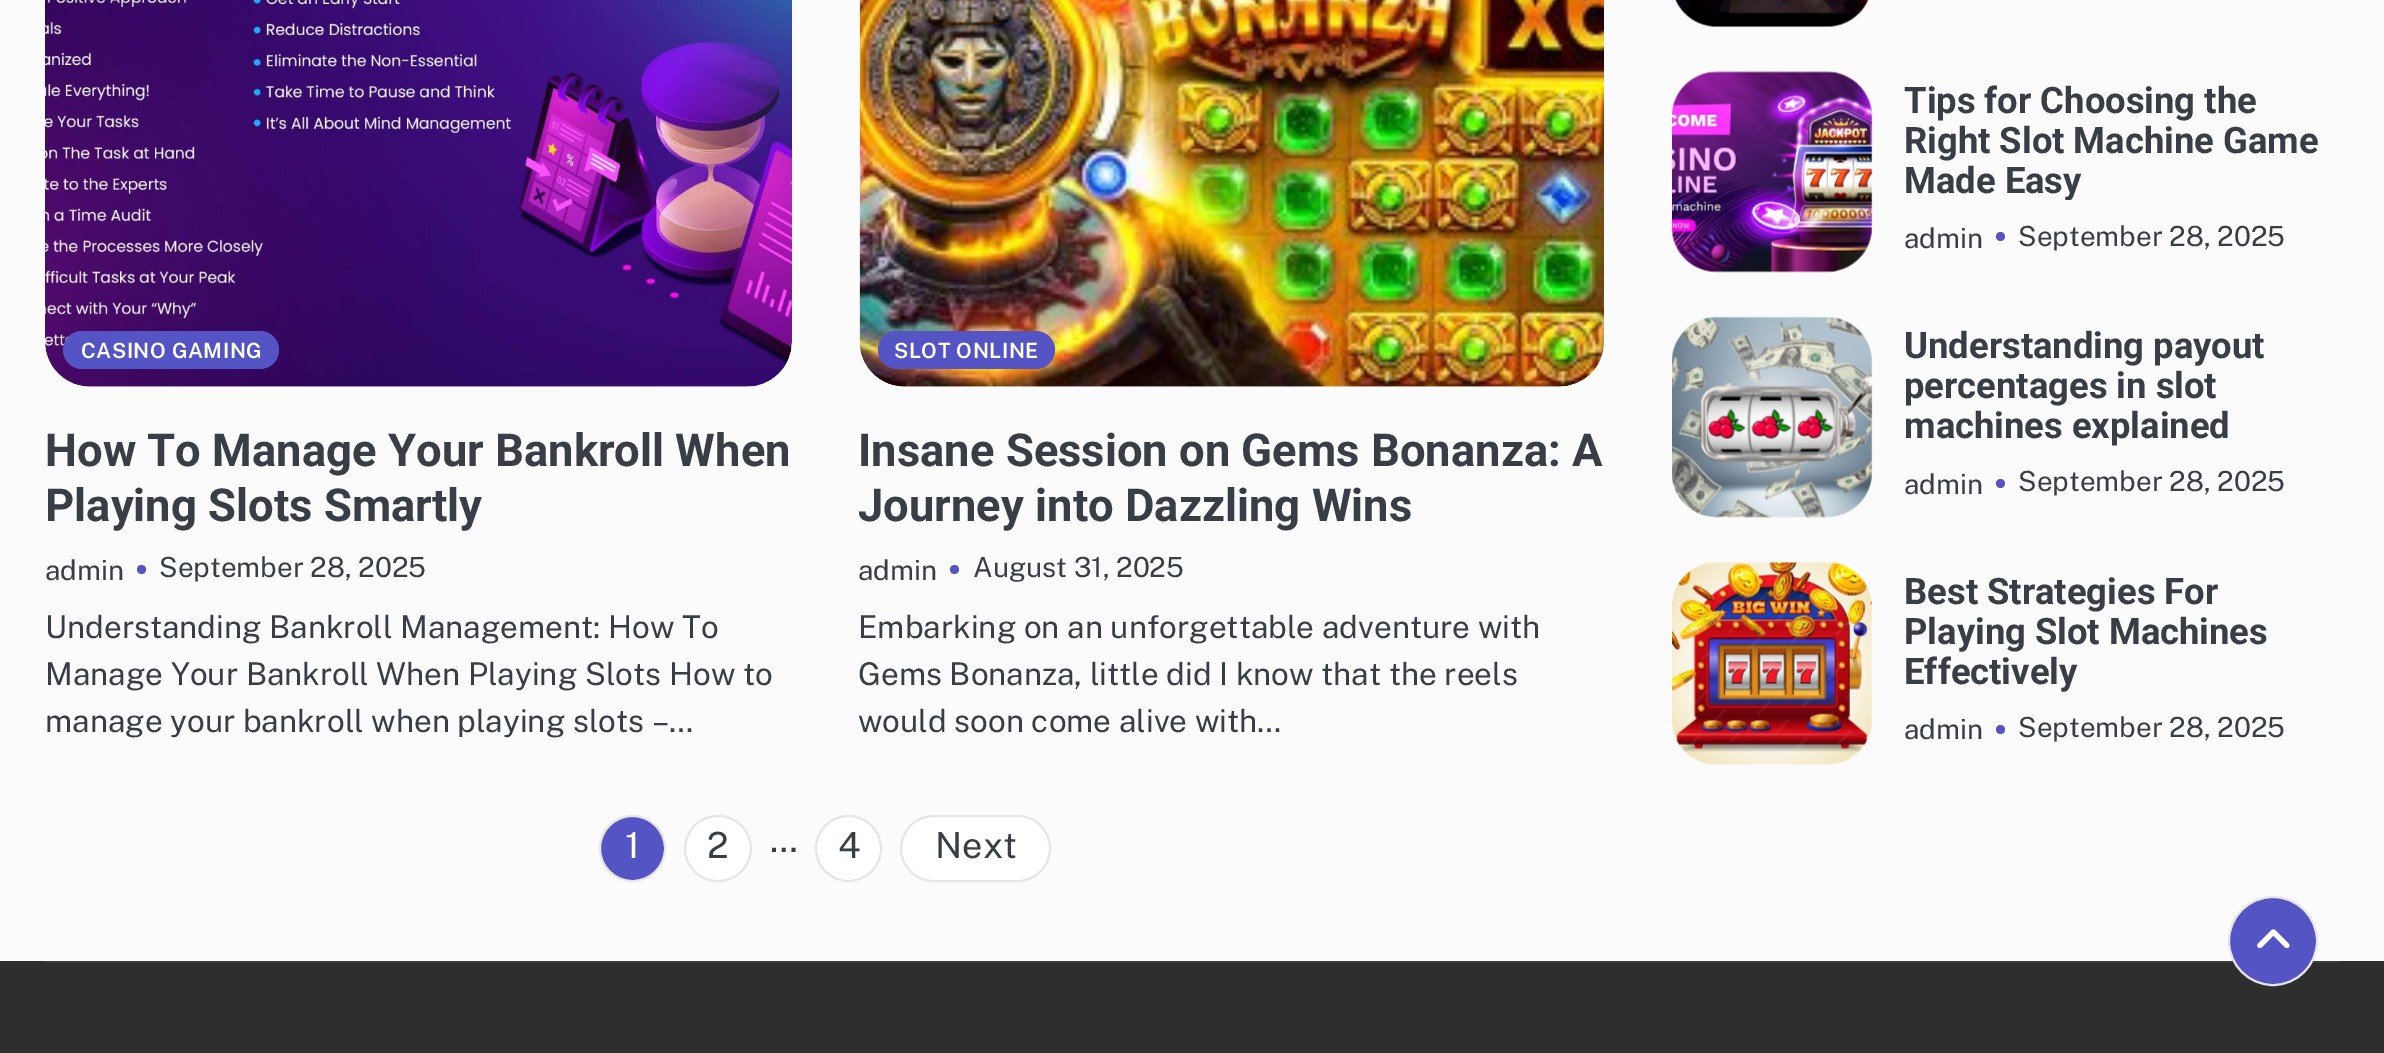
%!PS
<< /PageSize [2384 1053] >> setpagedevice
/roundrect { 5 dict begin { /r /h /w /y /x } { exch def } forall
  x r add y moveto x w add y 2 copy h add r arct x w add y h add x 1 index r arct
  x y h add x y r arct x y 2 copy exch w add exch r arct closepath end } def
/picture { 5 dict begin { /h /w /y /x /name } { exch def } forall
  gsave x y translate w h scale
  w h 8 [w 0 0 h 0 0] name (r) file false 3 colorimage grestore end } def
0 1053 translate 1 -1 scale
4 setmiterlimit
0.984 setgray
0 0 2384 1053 rectfill
(img1.rgb) 45 0 747 387 picture
0.329 0.329 0.773 setrgbcolor
63 331 216 38 19 roundrect fill
/PublicSans-SemiBold [21 0 0 -21 0 0] selectfont
1 setgray
81 358 moveto 0.5 0 (CASINO GAMING) ashow
/Roboto-Bold [45.4 0 0 -45.4 0 0] selectfont
0.224 0.243 0.275 setrgbcolor
45 466 moveto (How To Manage Your Bankroll When) show
45 521 moveto (Playing Slots Smartly) show
/PublicSans-Regular [27.75 0 0 -27.75 0 0] selectfont
45 580 moveto (admin) show
0.329 0.329 0.773 setrgbcolor
newpath 141.5 569.5 4.5 0 360 arc closepath fill
0.224 0.243 0.275 setrgbcolor
159 577 moveto (September 28, 2025) show
/PublicSans-Regular [31.4 0 0 -31.4 0 0] selectfont
45 638 moveto (Understanding Bankroll Management: How To) show
45 685 moveto (Manage Your Bankroll When Playing Slots How to) show
45 732 moveto (manage your bankroll when playing slots –…) show
(img2.rgb) 859 0 745 387 picture
0.329 0.329 0.773 setrgbcolor
878 331 177 38 19 roundrect fill
/PublicSans-SemiBold [21 0 0 -21 0 0] selectfont
1 setgray
894 358 moveto 0.5 0 (SLOT ONLINE) ashow
/Roboto-Bold [45.4 0 0 -45.4 0 0] selectfont
0.224 0.243 0.275 setrgbcolor
858 466 moveto (Insane Session on Gems Bonanza: A) show
858 521 moveto (Journey into Dazzling Wins) show
/PublicSans-Regular [27.75 0 0 -27.75 0 0] selectfont
858 580 moveto (admin) show
0.329 0.329 0.773 setrgbcolor
newpath 954.5 569.5 4.5 0 360 arc closepath fill
0.224 0.243 0.275 setrgbcolor
973 577 moveto (August 31, 2025) show
/PublicSans-Regular [31.4 0 0 -31.4 0 0] selectfont
858 638 moveto (Embarking on an unforgettable adventure with) show
858 685 moveto (Gems Bonanza, little did I know that the reels) show
858 732 moveto (would soon come alive with…) show
0.329 0.329 0.773 setrgbcolor
newpath 632.5 848.5 32.5 0 360 arc closepath gsave fill grestore
0.906 0.902 0.902 setrgbcolor
2 setlinewidth
stroke
/PublicSans-Regular [36 0 0 -36 0 0] selectfont
1 setgray
625 858 moveto (1) show
685 816 66 65 32.5 roundrect gsave fill grestore
0.906 0.902 0.902 setrgbcolor
stroke
0.224 0.243 0.275 setrgbcolor
707 858 moveto (2) show
770 852 moveto (…) show
1 setgray
newpath 848.5 848.5 32.5 0 360 arc closepath gsave fill grestore
0.906 0.902 0.902 setrgbcolor
stroke
0.224 0.243 0.275 setrgbcolor
838 858 moveto (4) show
1 setgray
901 816 149 65 32.5 roundrect gsave fill grestore
0.906 0.902 0.902 setrgbcolor
stroke
0.224 0.243 0.275 setrgbcolor
935 858 moveto (Next) show
(img3.rgb) 1675 0 194 28 picture
(img4.rgb) 1672 71 201 202 picture
/Roboto-Bold [36.4 0 0 -36.4 0 0] selectfont
1904 113 moveto (Tips for Choosing the) show
1904 153 moveto (Right Slot Machine Game) show
gsave
1904 81 436 119 rectclip
1904 193 moveto (Made Easy) show
grestore
/PublicSans-Regular [27.75 0 0 -27.75 0 0] selectfont
1904 248 moveto (admin) show
0.329 0.329 0.773 setrgbcolor
newpath 2000.5 236.5 4.5 0 360 arc closepath fill
0.224 0.243 0.275 setrgbcolor
2018 246 moveto (September 28, 2025) show
(img5.rgb) 1672 316 201 202 picture
/Roboto-Bold [36.4 0 0 -36.4 0 0] selectfont
1904 358 moveto (Understanding payout) show
1904 398 moveto (percentages in slot) show
1904 438 moveto (machines explained) show
/PublicSans-Regular [27.75 0 0 -27.75 0 0] selectfont
1904 494 moveto (admin) show
0.329 0.329 0.773 setrgbcolor
newpath 2000.5 483.5 4.5 0 360 arc closepath fill
0.224 0.243 0.275 setrgbcolor
2018 491 moveto (September 28, 2025) show
(img6.rgb) 1672 561 201 204 picture
/Roboto-Bold [36.4 0 0 -36.4 0 0] selectfont
1904 604 moveto (Best Strategies For) show
1904 644 moveto (Playing Slot Machines) show
1904 684 moveto (Effectively) show
/PublicSans-Regular [27.75 0 0 -27.75 0 0] selectfont
1904 739 moveto (admin) show
0.329 0.329 0.773 setrgbcolor
newpath 2000.5 729.5 4.5 0 360 arc closepath fill
0.224 0.243 0.275 setrgbcolor
2018 737 moveto (September 28, 2025) show
0.18 setgray
0 961 2384 92 rectfill
0.227 setgray
45 961 2295 2 rectfill
0.329 0.329 0.773 setrgbcolor
newpath 2273 941 44 0 360 arc closepath gsave fill grestore
0.906 0.902 0.902 setrgbcolor
stroke
(img7.rgb) 2257 929 33 20 picture
showpage
